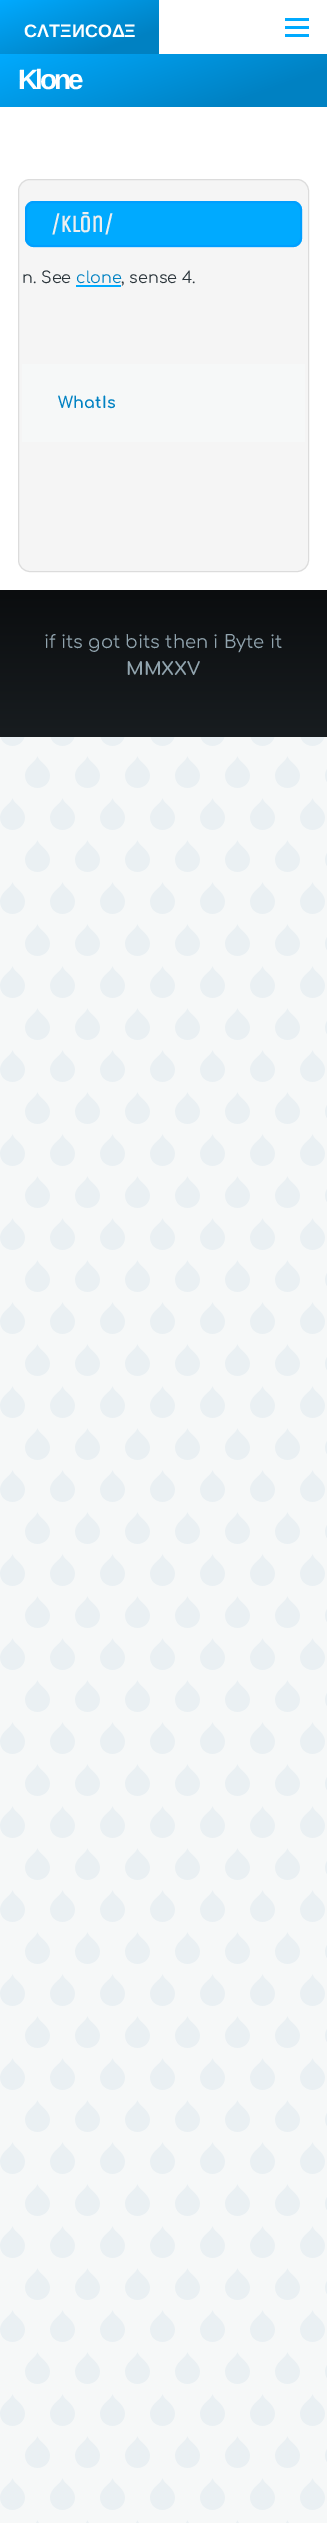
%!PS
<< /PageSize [327 2523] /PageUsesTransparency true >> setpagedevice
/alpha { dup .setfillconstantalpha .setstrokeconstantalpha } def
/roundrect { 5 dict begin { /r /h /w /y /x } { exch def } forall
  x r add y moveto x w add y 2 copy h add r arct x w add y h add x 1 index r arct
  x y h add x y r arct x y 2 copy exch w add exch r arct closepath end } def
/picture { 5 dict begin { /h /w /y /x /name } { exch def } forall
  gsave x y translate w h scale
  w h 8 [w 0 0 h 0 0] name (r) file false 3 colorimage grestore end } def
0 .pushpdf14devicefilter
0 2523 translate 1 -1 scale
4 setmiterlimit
0.965 0.973 0.973 setrgbcolor
0 0 327 2523 rectfill
(img1.rgb) 0 737 327 1786 picture
1 setgray
0 107 327 483 rectfill
159 0 168 54 rectfill
gsave newpath 0 0 moveto 159 0 lineto 159 54 lineto 0 54 lineto closepath clip newpath
<< /ShadingType 2 /ColorSpace /DeviceRGB /Coords [62 -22 97 76] /Extend [true true] /Function << /FunctionType 3 /Domain [0 1] /Functions [<< /FunctionType 2 /Domain [0 1] /C0 [0 0.667 1] /C1 [0 0.506 0.761] /N 1 >> << /FunctionType 2 /Domain [0 1] /C0 [0 0.506 0.761] /C1 [0 0.506 0.761] /N 1 >>] /Bounds [0.79] /Encode [0 1 0 1] >> >> shfill grestore
/LiberationSans-Bold [18 0 0 -18 0 0] selectfont
24 37 moveto (CΛTΞИCOΔΞ) show
0 0.667 1 setrgbcolor
285 26 24 3 rectfill
285 18 24 3 rectfill
285 34 24 3 rectfill
gsave newpath 0 54 moveto 327 54 lineto 327 107 lineto 0 107 lineto closepath clip newpath
<< /ShadingType 2 /ColorSpace /DeviceRGB /Coords [136 3.6 191 156] /Extend [true true] /Function << /FunctionType 3 /Domain [0 1] /Functions [<< /FunctionType 2 /Domain [0 1] /C0 [0 0.667 1] /C1 [0 0.506 0.761] /N 1 >> << /FunctionType 2 /Domain [0 1] /C0 [0 0.506 0.761] /C1 [0 0.506 0.761] /N 1 >>] /Bounds [0.79] /Encode [0 1 0 1] >> >> shfill grestore
/LiberationSans-Bold [28 0 0 -28 0 0] selectfont
1 setgray
18 89 moveto -3 0 (Klone) ashow
0.961 setgray
18 179 291 393 12 roundrect fill
0.6 alpha
0.8 setgray
18.5 179.5 290 392 11.5 roundrect stroke
1 alpha
0 0.667 1 setrgbcolor
25 201 277 46 9 roundrect fill
0.67 alpha
0 0.6 1 setrgbcolor
2 setlinewidth
26 202 275 44 8 roundrect stroke
/UnicaOne-Bold [24 0 0 -24 0 0] selectfont
1 alpha
0.933 setgray
51 232 moveto -0.25 0 (/klōn/) ashow
/Comfortaa-Regular [16 0 0 -16 0 0] selectfont
0.169 0.208 0.231 setrgbcolor
22 283 moveto (n. See) show
0 0.506 0.761 setrgbcolor
76 283 moveto (clone) show
0 0.667 1 setrgbcolor
76 285 45 2 rectfill
0.169 0.208 0.231 setrgbcolor
121 283 moveto (, sense 4.) show
0.965 0.973 0.973 setrgbcolor
22 364 283 78 rectfill
/Comfortaa-Bold [16 0 0 -16 0 0] selectfont
0 0.506 0.761 setrgbcolor
58 408 moveto 0.25 0 (WhatIs) ashow
gsave newpath 0 590 moveto 327 590 lineto 327 737 lineto 0 737 lineto closepath clip newpath
<< /ShadingType 2 /ColorSpace /DeviceRGB /Coords [164 590 164 737] /Extend [true true] /Function << /FunctionType 2 /Domain [0 1] /C0 [0.043 0.051 0.059] /C1 [0.094 0.114 0.125] /N 1 >> >> shfill grestore
/Comfortaa-Regular [18 0 0 -18 0 0] selectfont
0.573 0.647 0.686 setrgbcolor
44 648 moveto (if its got bits then i Byte it) show
/Comfortaa-Bold [18 0 0 -18 0 0] selectfont
126 675 moveto (MMXXV) show
.poppdf14devicefilter showpage
